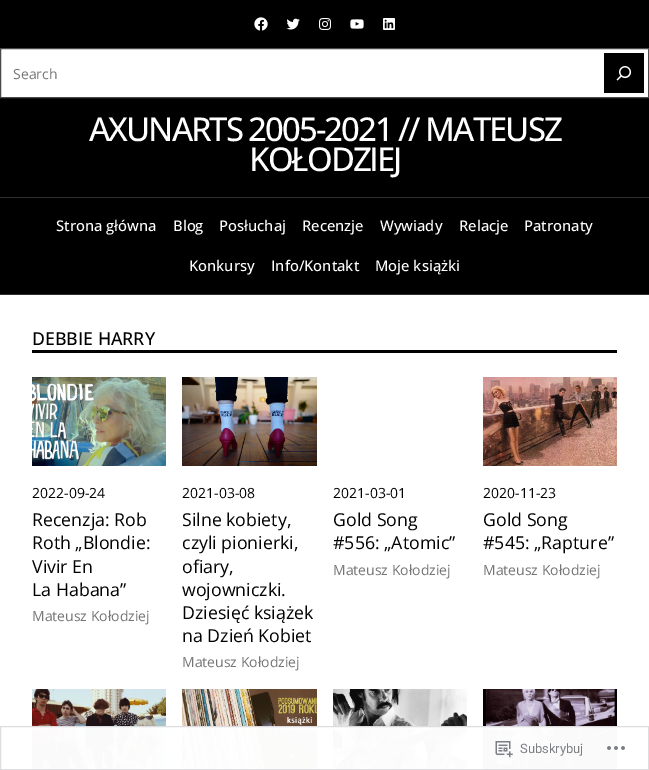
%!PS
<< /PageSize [649 770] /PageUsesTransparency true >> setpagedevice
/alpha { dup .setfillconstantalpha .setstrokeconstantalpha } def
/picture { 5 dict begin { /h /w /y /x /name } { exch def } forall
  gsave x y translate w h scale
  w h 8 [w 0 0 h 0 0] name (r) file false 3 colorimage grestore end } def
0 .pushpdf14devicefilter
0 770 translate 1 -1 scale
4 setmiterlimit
1 setgray
0 0 649 770 rectfill
0 setgray
0 0 649 294 rectfill
(img1.rgb) 254 17 14 14 picture
(img2.rgb) 286 18 14 12 picture
(img3.rgb) 319 18 12 12 picture
(img4.rgb) 350 19 14 10 picture
(img5.rgb) 383 18 12 12 picture
1 setgray
newpath 0.5 48.5 moveto 648.5 48.5 lineto 648.5 97.5 lineto 0.5 97.5 lineto closepath gsave fill grestore
0.29 setgray
stroke
/OpenSans-Regular [14 0 0 -14 0 0] selectfont
0.459 setgray
13 79 moveto (Search) show
0 setgray
604 53 40 40 rectfill
(img6.rgb) 616 66 16 15 picture
/OpenSans-Medium [32.9 0 0 -32.9 0 0] selectfont
1 setgray
89 141 moveto -2 0 (AXUNARTS 2005-2021 // MATEUSZ) ashow
249 171 moveto -2 0 (KOŁODZIEJ) ashow
0.18 setgray
0 197 649 1 rectfill
0 294 649 1 rectfill
/OpenSans-Medium [14.75 0 0 -14.75 0 0] selectfont
1 setgray
56 231 moveto (Strona główna) show
173 231 moveto (Blog) show
219 231 moveto (Posłuchaj) show
302 231 moveto (Recenzje) show
380 231 moveto (Wywiady) show
459 231 moveto (Relacje) show
524 231 moveto (Patronaty) show
189 271 moveto (Konkursy) show
271 271 moveto (Info/Kontakt) show
375 271 moveto (Moje książki) show
0 setgray
32 350 585 3 rectfill
/OpenSans-Medium [17.75 0 0 -17.75 0 0] selectfont
32 345 moveto (DEBBIE HARRY) show
(img7.rgb) 32 377 134 89 picture
/OpenSans-Regular [14 0 0 -14 0 0] selectfont
32 498 moveto (2022-09-24) show
/OpenSans-Regular [17.75 0 0 -17.75 0 0] selectfont
32 526 moveto (Recenzja: Rob) show
32 549 moveto (Roth „Blondie:) show
32 573 moveto (Vivir En) show
32 596 moveto (La Habana”) show
/OpenSans-Regular [14 0 0 -14 0 0] selectfont
0.459 setgray
32 621 moveto (Mateusz Kołodziej) show
(img8.rgb) 182 377 135 89 picture
0 setgray
182 498 moveto (2021-03-08) show
/OpenSans-Regular [17.75 0 0 -17.75 0 0] selectfont
182 526 moveto (Silne kobiety,) show
182 549 moveto (czyli pionierki,) show
182 573 moveto (ofiary,) show
182 596 moveto (wojowniczki.) show
182 619 moveto (Dziesięć książek) show
182 642 moveto (na Dzień Kobiet) show
/OpenSans-Regular [14 0 0 -14 0 0] selectfont
0.459 setgray
182 667 moveto (Mateusz Kołodziej) show
0 setgray
333 498 moveto (2021-03-01) show
/OpenSans-Regular [17.75 0 0 -17.75 0 0] selectfont
333 526 moveto (Gold Song) show
333 549 moveto (#556: „Atomic”) show
/OpenSans-Regular [14 0 0 -14 0 0] selectfont
0.459 setgray
333 575 moveto (Mateusz Kołodziej) show
(img9.rgb) 483 377 134 89 picture
0 setgray
483 498 moveto (2020-11-23) show
/OpenSans-Regular [17.75 0 0 -17.75 0 0] selectfont
483 526 moveto (Gold Song) show
483 549 moveto (#545: „Rapture”) show
/OpenSans-Regular [14 0 0 -14 0 0] selectfont
0.459 setgray
483 575 moveto (Mateusz Kołodziej) show
(img10.rgb) 32 689 134 81 picture
(img11.rgb) 182 689 135 81 picture
(img12.rgb) 333 689 134 81 picture
(img13.rgb) 483 689 134 81 picture
0.98 alpha
1 setgray
32 726 585 44 rectfill
0.863 0.863 0.871 setrgbcolor
0.5 726.5 648 43 rectstroke
1 alpha
(img14.rgb) 495 741 18 17 picture
/Roboto-Regular [13 0 0 -13 0 0] selectfont
0.482 0.498 0.518 setrgbcolor
520 753 moveto (Subskrybuj) show
(img15.rgb) 607 746 18 4 picture
.poppdf14devicefilter showpage
